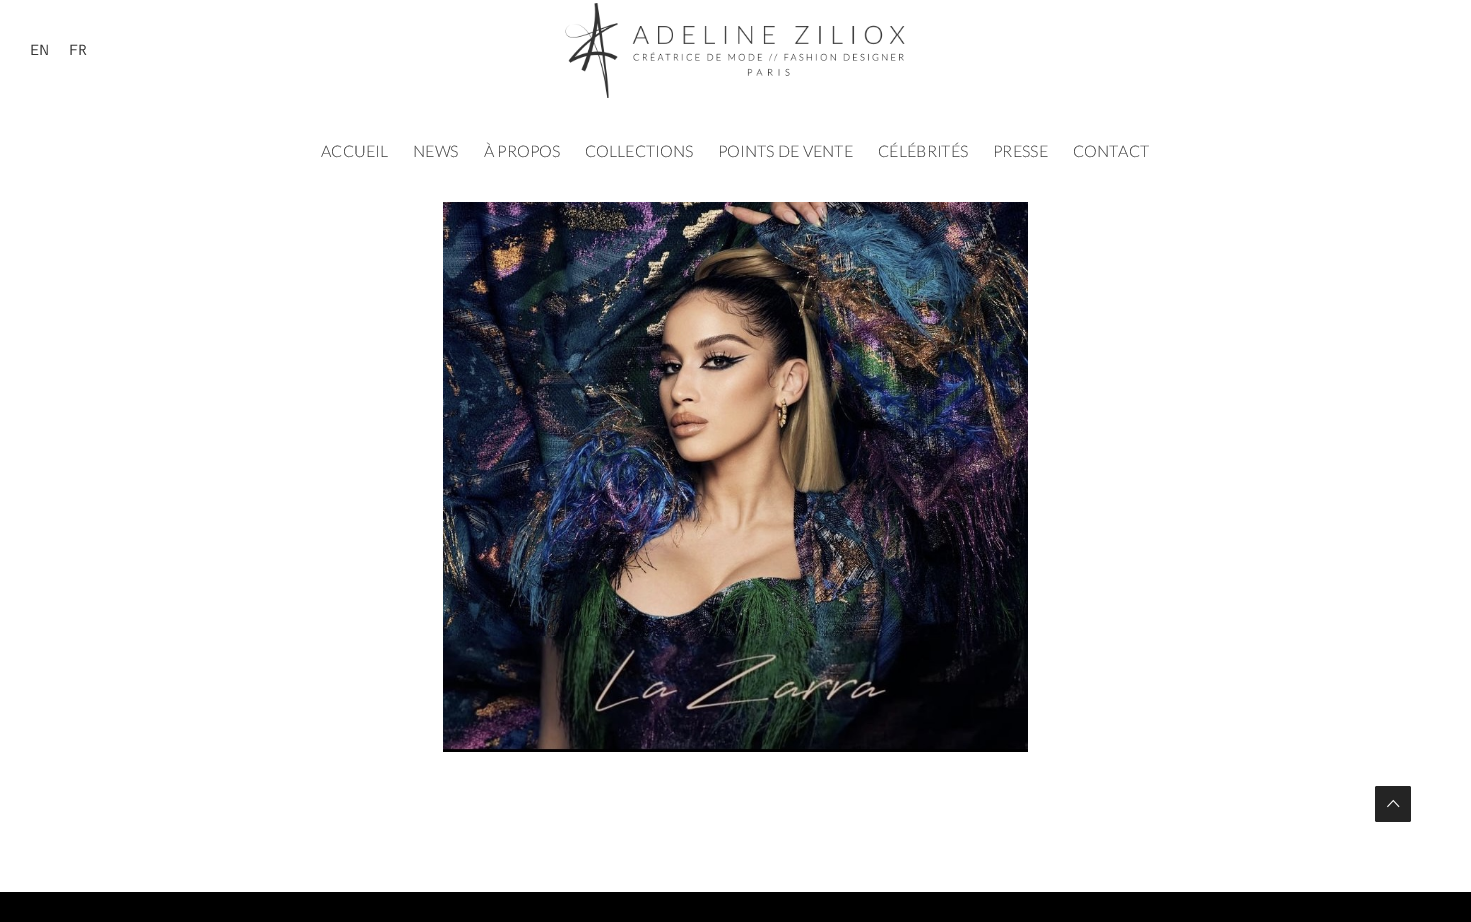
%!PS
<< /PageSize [1471 922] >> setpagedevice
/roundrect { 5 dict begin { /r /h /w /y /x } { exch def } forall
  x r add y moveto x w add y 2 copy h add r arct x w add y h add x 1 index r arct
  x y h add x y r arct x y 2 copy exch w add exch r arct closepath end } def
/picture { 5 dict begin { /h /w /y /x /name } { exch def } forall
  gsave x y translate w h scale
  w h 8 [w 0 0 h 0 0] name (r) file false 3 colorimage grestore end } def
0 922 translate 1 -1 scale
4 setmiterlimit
1 setgray
0 0 1471 922 rectfill
/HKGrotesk-Regular [15 0 0 -15 0 0] selectfont
0.2 setgray
30 55 moveto (EN) show
69 55 moveto (FR) show
(img1.rgb) 565 3 340 95 picture
/Lato-Light [16 0 0 -16 0 0] selectfont
321 157 moveto (ACCUEIL) show
413 157 moveto (NEWS) show
484 157 moveto (À PROPOS) show
585 157 moveto (COLLECTIONS) show
718 157 moveto (POINTS DE VENTE) show
878 157 moveto (CÉLÉBRITÉS) show
993 157 moveto (PRESSE) show
1073 157 moveto (CONTACT) show
(img2.rgb) 443 202 585 550 picture
0 setgray
0 892 1471 30 rectfill
0.141 setgray
1375 786 36 36 2 roundrect fill
(img3.rgb) 1387 799 13 9 picture
showpage
